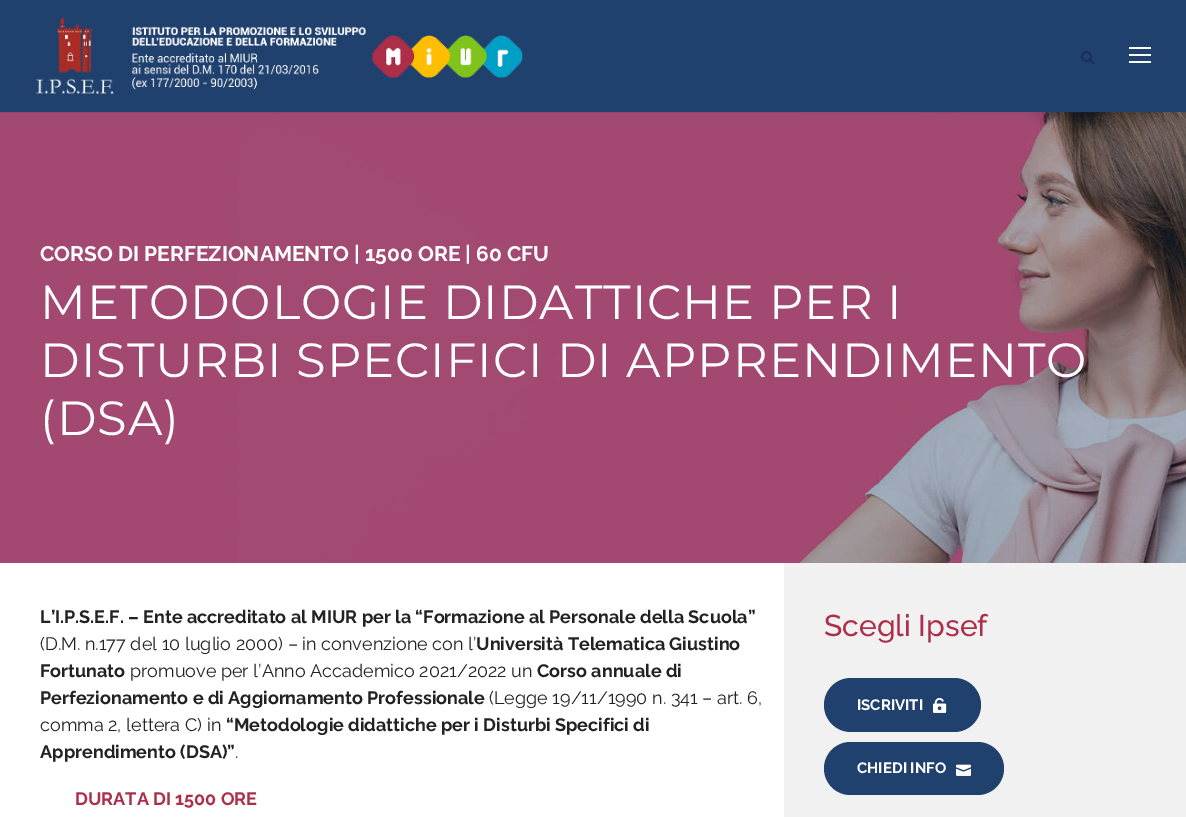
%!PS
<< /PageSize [1186 817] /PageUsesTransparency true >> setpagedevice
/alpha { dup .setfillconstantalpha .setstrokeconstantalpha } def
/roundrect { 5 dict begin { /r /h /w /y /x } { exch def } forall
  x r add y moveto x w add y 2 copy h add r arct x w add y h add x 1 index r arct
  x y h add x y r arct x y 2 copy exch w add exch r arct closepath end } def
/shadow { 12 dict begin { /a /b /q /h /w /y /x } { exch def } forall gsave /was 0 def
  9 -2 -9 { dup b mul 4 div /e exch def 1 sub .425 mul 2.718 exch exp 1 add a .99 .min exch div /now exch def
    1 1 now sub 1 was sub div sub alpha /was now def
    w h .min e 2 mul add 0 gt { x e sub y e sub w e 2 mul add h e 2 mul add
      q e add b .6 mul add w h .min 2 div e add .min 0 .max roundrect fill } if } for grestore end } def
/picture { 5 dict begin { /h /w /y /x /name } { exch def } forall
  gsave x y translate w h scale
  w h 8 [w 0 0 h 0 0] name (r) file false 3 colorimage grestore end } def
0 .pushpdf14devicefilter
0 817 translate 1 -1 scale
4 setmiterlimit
1 setgray
0 0 1186 817 rectfill
(img3.rgb) 0 112 1186 451 picture
0 setgray
0 1 1186 112 0 1 0.1 shadow
0.125 0.255 0.427 setrgbcolor
0 0 1186 112 rectfill
(img1.rgb) 36 17 487 78 picture
(img2.rgb) 1081 51 13 13 picture
1 setgray
1129 47 22 2 rectfill
1129 54 22 2 rectfill
1129 61 22 2 rectfill
/Raleway-Bold [21 0 0 -21 0 0] selectfont
40 261 moveto (CORSO DI PERFEZIONAMENTO | 1500 ORE | 60 CFU) show
/Montserrat-Regular [48 0 0 -48 0 0] selectfont
40 319 moveto 1 0 (METODOLOGIE DIDATTICHE PER I) ashow
40 377 moveto 1 0 (DISTURBI SPECIFICI DI APPRENDIMENTO) ashow
40 435 moveto 1 0 (\(DSA\)) ashow
/Raleway-Bold [18 0 0 -18 0 0] selectfont
0.133 setgray
40 623 moveto (L’I.P.S.E.F. – Ente accreditato al MIUR per la “Formazione al Personale della Scuola”) show
/Raleway-Regular [18 0 0 -18 0 0] selectfont
40 650 moveto (\(D.M. n.177 del 10 luglio 2000\) – in convenzione con l’) show
/Raleway-Bold [18 0 0 -18 0 0] selectfont
476 650 moveto (Università Telematica Giustino) show
40 677 moveto (Fortunato) show
/Raleway-Regular [18 0 0 -18 0 0] selectfont
130 677 moveto (promuove per l’Anno Accademico 2021/2022 un) show
/Raleway-Bold [18 0 0 -18 0 0] selectfont
537 677 moveto (Corso annuale di) show
40 704 moveto (Perfezionamento e di Aggiornamento Professionale) show
/Raleway-Regular [18 0 0 -18 0 0] selectfont
489 704 moveto (\(Legge 19/11/1990 n. 341 – art. 6,) show
40 731 moveto (comma 2, lettera C\) in) show
/Raleway-Bold [18 0 0 -18 0 0] selectfont
226 731 moveto (“Metodologie didattiche per i Disturbi Specifici di) show
40 758 moveto (Apprendimento \(DSA\)”) show
/Raleway-Regular [18 0 0 -18 0 0] selectfont
235 758 moveto (.) show
/Raleway-Bold [18 0 0 -18 0 0] selectfont
0.678 0.18 0.286 setrgbcolor
75 805 moveto (DURATA DI 1500 ORE) show
0.945 setgray
784 563 402 254 rectfill
/Raleway-Medium [30 0 0 -30 0 0] selectfont
0.678 0.18 0.286 setrgbcolor
824 636 moveto (Scegli Ipsef) show
0.125 0.255 0.427 setrgbcolor
824 678 157 54 27 roundrect fill
/Raleway-Bold [15 0 0 -15 0 0] selectfont
1 setgray
857 710 moveto (ISCRIVITI) show
(img4.rgb) 933 697 14 16 picture
0.125 0.255 0.427 setrgbcolor
824 742 180 53 26.5 roundrect fill
1 setgray
857 773 moveto (CHIEDI INFO) show
(img5.rgb) 956 764 15 12 picture
.poppdf14devicefilter showpage
